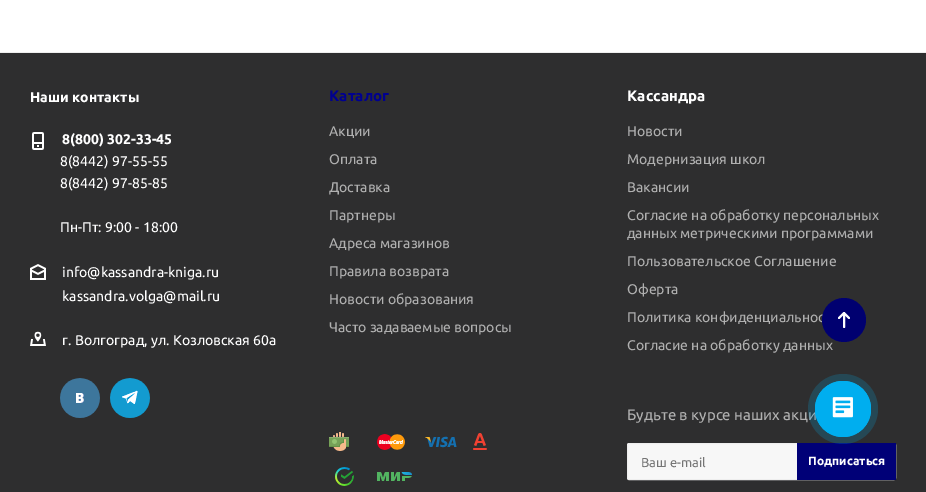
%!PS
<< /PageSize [926 492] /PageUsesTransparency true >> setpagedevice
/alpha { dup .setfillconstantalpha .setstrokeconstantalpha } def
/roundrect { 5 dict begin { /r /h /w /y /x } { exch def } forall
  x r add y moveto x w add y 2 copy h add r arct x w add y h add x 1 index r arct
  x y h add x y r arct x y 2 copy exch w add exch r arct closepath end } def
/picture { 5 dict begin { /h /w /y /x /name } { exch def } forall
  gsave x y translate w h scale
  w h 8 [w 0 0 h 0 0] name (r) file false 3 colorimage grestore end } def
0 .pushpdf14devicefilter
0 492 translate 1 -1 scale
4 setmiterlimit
1 setgray
0 0 926 492 rectfill
0.933 setgray
0 52 926 1 rectfill
0.18 0.18 0.184 setrgbcolor
0 53 926 439 rectfill
/Ubuntu-Bold [14 0 0 -14 0 0] selectfont
1 setgray
30 102 moveto (Наши контакты) show
(img1.rgb) 32 132 12 18 picture
62 144 moveto (8\(800\) 302-33-45) show
/Ubuntu-Regular [14 0 0 -14 0 0] selectfont
60 166 moveto (8\(8442\) 97-55-55) show
60 188 moveto (8\(8442\) 97-85-85) show
60 232 moveto (Пн-Пт: 9:00 - 18:00) show
(img2.rgb) 30 264 16 16 picture
62 277 moveto (info@kassandra-kniga.ru) show
62 301 moveto (kassandra.volga@mail.ru) show
(img3.rgb) 30 331 16 15 picture
62 345 moveto (г. Волгоград, ул. Козловская 60а) show
(img4.rgb) 60 378 40 40 picture
(img5.rgb) 110 378 40 40 picture
/Ubuntu-Bold [15 0 0 -15 0 0] selectfont
0 0 0.561 setrgbcolor
329 101 moveto (Каталог) show
/Ubuntu-Regular [14 0 0 -14 0 0] selectfont
0.69 setgray
329 136 moveto (Акции) show
329 164 moveto (Оплата) show
329 192 moveto (Доставка) show
329 220 moveto (Партнеры) show
329 248 moveto (Адреса магазинов) show
329 276 moveto (Правила возврата) show
329 304 moveto (Новости образования) show
329 332 moveto (Часто задаваемые вопросы) show
(img6.rgb) 329 432 20 19 picture
(img7.rgb) 377 434 28 16 picture
(img8.rgb) 425 436 32 12 picture
(img9.rgb) 473 433 14 17 picture
(img10.rgb) 335 467 19 19 picture
(img11.rgb) 377 472 35 9 picture
/Ubuntu-Bold [15 0 0 -15 0 0] selectfont
1 setgray
627 101 moveto (Кассандра) show
/Ubuntu-Regular [14 0 0 -14 0 0] selectfont
0.69 setgray
627 136 moveto (Новости) show
627 164 moveto (Модернизация школ) show
627 192 moveto (Вакансии) show
627 220 moveto (Согласие на обработку персональных) show
627 238 moveto (данных метрическими программами) show
627 266 moveto (Пользовательское Соглашение) show
627 294 moveto (Оферта) show
627 322 moveto (Политика конфиденциальнос) show
627 350 moveto (Согласие на обработку данных) show
/Ubuntu-Regular [15 0 0 -15 0 0] selectfont
627 420 moveto (Будьте в курсе наших акци) show
0.969 setgray
627.5 443.5 268 36 1.5 roundrect gsave fill grestore
0.933 setgray
stroke
/Ubuntu-Regular [13 0 0 -13 0 0] selectfont
0.459 setgray
641 467 moveto (Ваш e-mail) show
0 0 0.467 setrgbcolor
797 443 99 37 rectfill
/Ubuntu-Bold [12 0 0 -12 0 0] selectfont
1 setgray
808 465 moveto (Подписаться) show
0 0 0.439 setrgbcolor
newpath 844 320 22 0 360 arc closepath fill
1 setgray
2 setlinewidth
1 setlinecap
1 setlinejoin
newpath 844 313 moveto 844 327 lineto 839 318 moveto 844 313 lineto 849 318 lineto stroke
0.2 alpha
0 0.682 0.937 setrgbcolor
newpath 843 409 35 0 360 arc closepath fill
1 alpha
0.8 setlinewidth
0 setlinecap
0 setlinejoin
newpath 843 409 27.6 0 360 arc closepath stroke
newpath 843 409 28 0 360 arc closepath fill
(img12.rgb) 832 397 21 21 picture
.poppdf14devicefilter showpage
